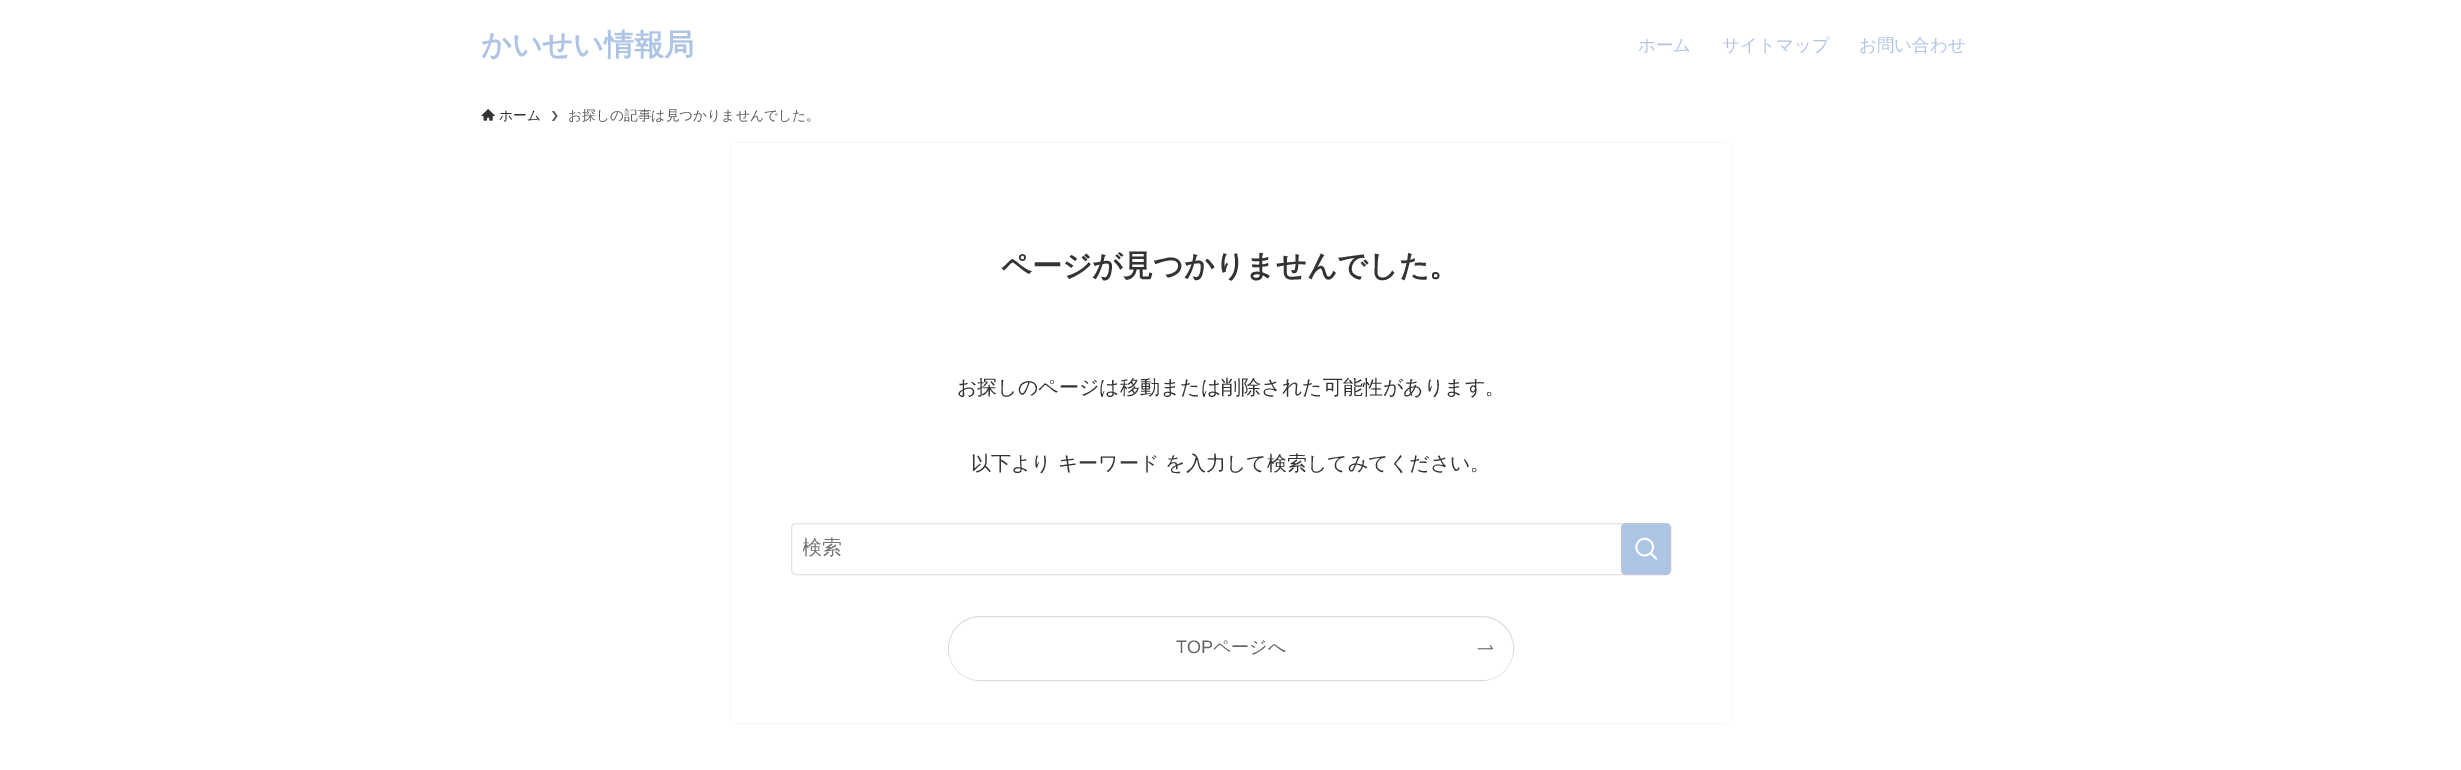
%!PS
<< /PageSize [2461 770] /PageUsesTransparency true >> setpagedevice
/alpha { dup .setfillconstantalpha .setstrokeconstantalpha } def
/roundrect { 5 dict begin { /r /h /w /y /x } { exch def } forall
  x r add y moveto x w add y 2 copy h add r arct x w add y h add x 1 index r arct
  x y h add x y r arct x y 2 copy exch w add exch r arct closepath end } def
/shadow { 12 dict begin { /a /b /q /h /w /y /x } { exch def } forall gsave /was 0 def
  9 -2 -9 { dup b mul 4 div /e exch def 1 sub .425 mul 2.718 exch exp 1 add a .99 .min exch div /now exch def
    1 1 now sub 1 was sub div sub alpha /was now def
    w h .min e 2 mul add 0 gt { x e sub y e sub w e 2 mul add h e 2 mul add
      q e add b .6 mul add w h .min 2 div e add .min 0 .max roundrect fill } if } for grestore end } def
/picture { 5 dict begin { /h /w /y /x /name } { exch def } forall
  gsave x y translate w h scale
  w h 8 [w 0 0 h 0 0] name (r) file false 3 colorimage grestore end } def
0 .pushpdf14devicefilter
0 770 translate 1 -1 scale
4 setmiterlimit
1 setgray
0 0 2461 770 rectfill
/WenQuanYiZenHei-Bold [30 0 0 -30 0 0] selectfont
0.682 0.769 0.898 setrgbcolor
481 55 moveto (かいせい情報局) show
/WenQuanYiZenHei-Medium [17.5 0 0 -17.5 0 0] selectfont
1638 51 moveto (ホーム) show
1722 51 moveto (サイトマップ) show
1859 51 moveto (お問い合わせ) show
(img1.rgb) 481 109 14 12 picture
/WenQuanYiZenHei-Medium [13.75 0 0 -13.75 0 0] selectfont
0.2 setgray
499 120 moveto (ホーム) show
0.361 setgray
newpath 554 111 moveto 552 111 lineto 555.5 116 lineto 552 121 lineto 554 121 lineto 557.5 116 lineto closepath fill
568 120 moveto (お探しの記事は見つかりませんでした。) show
0 setgray
731 143 1000 580 5 0.5 0.12 shadow
1 setgray
731 143 1000 580 5 roundrect fill
/WenQuanYiZenHei-Bold [30 0 0 -30 0 0] selectfont
0.2 setgray
1001 276 moveto (ページが見つかりませんでした。) show
/WenQuanYiZenHei-Medium [20 0 0 -20 0 0] selectfont
957 394 moveto (お探しのページは移動または削除された可能性があります。) show
971 470 moveto (以下より キーワード を入力して検索してみてください。) show
0.89 setgray
791.5 523.5 879 51 4.5 roundrect stroke
gsave
803 536 812 27 rectclip
0.459 setgray
802 554 moveto (検索) show
grestore
0.682 0.769 0.898 setrgbcolor
1621 523 50 52 5 roundrect fill
0.5 alpha
0.78 setgray
1621.5 523.5 49 51 4.5 roundrect stroke
1 alpha
(img2.rgb) 1635 537 23 23 picture
0.863 setgray
948.5 616.5 565 64 32 roundrect stroke
1 setgray
949 618 564 62 31 roundrect fill
/LiberationSans-Regular [18 0 0 -18 0 0] selectfont
0.4 setgray
1176 653 moveto (TOP) show
/WenQuanYiZenHei-Medium [18 0 0 -18 0 0] selectfont
1213 653 moveto (ページへ) show
(img3.rgb) 1477 645 17 5 picture
.poppdf14devicefilter showpage
